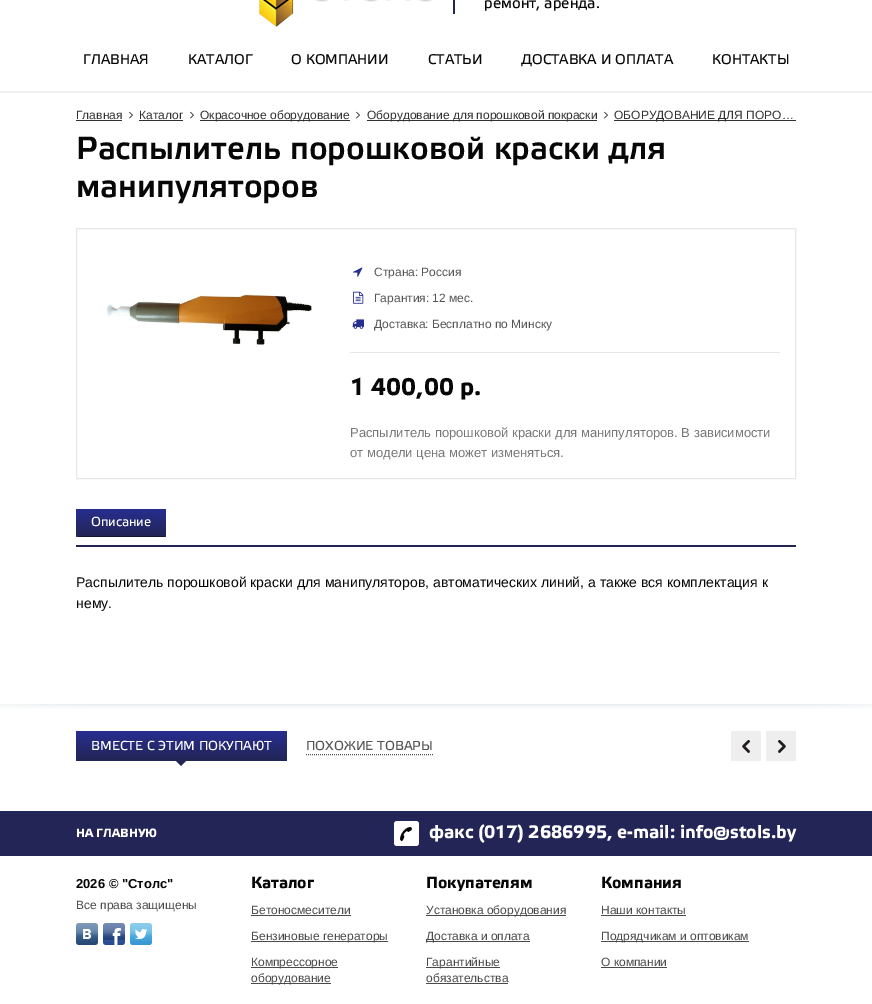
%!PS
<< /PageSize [872 1004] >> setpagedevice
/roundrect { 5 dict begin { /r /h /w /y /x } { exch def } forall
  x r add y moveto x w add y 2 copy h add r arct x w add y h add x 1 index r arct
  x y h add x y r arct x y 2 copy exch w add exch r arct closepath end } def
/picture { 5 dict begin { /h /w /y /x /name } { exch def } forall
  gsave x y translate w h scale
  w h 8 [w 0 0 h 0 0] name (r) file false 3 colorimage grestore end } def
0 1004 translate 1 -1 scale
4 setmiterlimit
1 setgray
0 0 872 1004 rectfill
0.941 setgray
0 91 872 2 rectfill
(img1.rgb) 259 0 173 27 picture
0.133 0.145 0.333 setrgbcolor
453 0 2 14 rectfill
/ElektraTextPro-Regular [15 0 0 -15 0 0] selectfont
0.027 setgray
484 8 moveto (ремонт, аренда.) show
/ElektraTextPro-Regular [14 0 0 -14 0 0] selectfont
83 64 moveto (ГЛАВНАЯ) show
188 64 moveto (КАТАЛОГ) show
291 64 moveto (О КОМПАНИИ) show
428 64 moveto (СТАТЬИ) show
521 64 moveto (ДОСТАВКА И ОПЛАТА) show
712 64 moveto (КОНТАКТЫ) show
/LiberationSans-Regular [12 0 0 -12 0 0] selectfont
0.192 setgray
76 119 moveto (Главная) show
76 120 46 1 rectfill
(img2.rgb) 129 111 4 8 picture
139 119 moveto (Каталог) show
139 120 44 1 rectfill
(img2.rgb) 190 111 4 8 picture
200 120 150 1 rectfill
200 119 moveto (Окрасочное оборудование) show
(img2.rgb) 356 111 4 8 picture
367 120 230 1 rectfill
367 119 moveto (Оборудование для порошковой покраски) show
(img2.rgb) 604 111 4 8 picture
614 120 182 1 rectfill
614 119 moveto (ОБОРУДОВАНИЕ ДЛЯ ПОРО…) show
/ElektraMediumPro-Medium [32 0 0 -32 0 0] selectfont
0.027 setgray
76 159 moveto (Распылитель порошковой краски для) show
76 197 moveto (манипуляторов) show
0.906 setgray
76.5 228.5 719 250 rectstroke
(img3.rgb) 106 294 206 51 picture
350 352 430 1 rectfill
(img4.rgb) 353 267 10 10 picture
/LiberationSans-Regular [12 0 0 -12 0 0] selectfont
0.333 setgray
374 276 moveto (Страна: Россия) show
(img5.rgb) 353 291 11 13 picture
374 302 moveto (Гарантия: 12 мес.) show
(img6.rgb) 352 319 12 10 picture
374 328 moveto (Доставка: Бесплатно по Минску) show
/ElektraTextPro-Bold [24 0 0 -24 0 0] selectfont
0.027 setgray
350 395 moveto (1 400,00 р.) show
/LiberationSans-Regular [13 0 0 -13 0 0] selectfont
0.467 setgray
350 437 moveto (Распылитель порошковой краски для манипуляторов. В зависимости) show
350 457 moveto (от модели цена может изменяться.) show
0.133 0.145 0.333 setrgbcolor
76 545 720 2 rectfill
gsave
76 509 90 28 3 roundrect clip newpath
gsave newpath 79 509 moveto 163 509 lineto 164.5 509 166 510.5 166 512 curveto 166 536 lineto 76 536 lineto 76 512 lineto 76 510.5 77.5 509 79 509 curveto closepath clip newpath
<< /ShadingType 2 /ColorSpace /DeviceRGB /Coords [121 509 121 536] /Extend [true true] /Function << /FunctionType 2 /Domain [0 1] /C0 [0.157 0.18 0.565] /C1 [0.133 0.145 0.333] /N 1 >> >> shfill grestore
gsave newpath 76 536 moveto 166 536 lineto 166 537 lineto 76 537 lineto closepath clip newpath
<< /ShadingType 2 /ColorSpace /DeviceRGB /Coords [121 536 121 563] /Extend [true true] /Function << /FunctionType 2 /Domain [0 1] /C0 [0.157 0.18 0.565] /C1 [0.133 0.145 0.333] /N 1 >> >> shfill grestore
grestore
0.078 0.09 0.224 setrgbcolor
78 536 87 1 rectfill
/ElektraTextPro-Regular [13 0 0 -13 0 0] selectfont
1 setgray
91 526 moveto (Описание) show
/LiberationSans-Regular [14 0 0 -14 0 0] selectfont
0.027 setgray
76 587 moveto (Распылитель порошковой краски для манипуляторов, автоматических линий, а также вся комплектация к) show
76 608 moveto (нему.) show
(img7.rgb) 0 704 872 5 picture
gsave 76 731 211 30 3 roundrect clip newpath
<< /ShadingType 2 /ColorSpace /DeviceRGB /Coords [182 731 182 761] /Extend [true true] /Function << /FunctionType 2 /Domain [0 1] /C0 [0.157 0.18 0.565] /C1 [0.133 0.145 0.333] /N 1 >> >> shfill grestore
/ElektraTextPro-Regular [13 0 0 -13 0 0] selectfont
1 setgray
91 750 moveto (ВМЕСТЕ С ЭТИМ ПОКУПАЮТ) show
0.133 0.145 0.333 setrgbcolor
newpath 176 761 moveto 186 761 lineto 181 766 lineto closepath fill
0.333 setgray
306 750 moveto (ПОХОЖИЕ ТОВАРЫ) show
[1 1] 0 setdash
newpath 306 754.5 moveto 433 754.5 lineto stroke
0.933 setgray
731 731 30 30 rectfill
(img8.rgb) 742 740 8 13 picture
766 731 30 30 rectfill
(img9.rgb) 778 740 8 13 picture
0.133 0.145 0.333 setrgbcolor
0 811 872 45 rectfill
/ElektraTextPro-Bold [12 0 0 -12 0 0] selectfont
1 setgray
76 837 moveto (НА ГЛАВНУЮ) show
394 821 25 25 3 roundrect fill
(img10.rgb) 400 827 12 14 picture
/ElektraTextPro-Bold [18 0 0 -18 0 0] selectfont
429 838 moveto (факс \(017\) 2686995, e-mail: info@stols.by) show
/LiberationSans-Bold [13 0 0 -13 0 0] selectfont
0.027 setgray
76 888 moveto (2026 © "Столс") show
/LiberationSans-Regular [12 0 0 -12 0 0] selectfont
0.294 setgray
76 909 moveto (Все права защищены) show
(img11.rgb) 76 923 22 22 picture
(img12.rgb) 103 923 22 22 picture
(img13.rgb) 130 923 22 22 picture
/ElektraTextPro-Bold [16 0 0 -16 0 0] selectfont
0.027 setgray
251 888 moveto (Каталог) show
/LiberationSans-Regular [12 0 0 -12 0 0] selectfont
0.294 setgray
251 914 moveto (Бетоносмесители) show
251 915 100 1 rectfill
251 941 137 1 rectfill
251 940 moveto (Бензиновые генераторы) show
251 967 87 1 rectfill
251 966 moveto (Компрессорное) show
251 983 80 1 rectfill
251 982 moveto (оборудование) show
/ElektraTextPro-Bold [16 0 0 -16 0 0] selectfont
0.027 setgray
426 888 moveto (Покупателям) show
0.294 setgray
426 915 140 1 rectfill
/LiberationSans-Regular [12 0 0 -12 0 0] selectfont
426 914 moveto (Установка оборудования) show
426 941 104 1 rectfill
426 940 moveto (Доставка и оплата) show
426 967 74 1 rectfill
426 966 moveto (Гарантийные) show
426 982 moveto (обязательства) show
426 983 82 1 rectfill
/ElektraTextPro-Bold [16 0 0 -16 0 0] selectfont
0.027 setgray
601 888 moveto (Компания) show
/LiberationSans-Regular [12 0 0 -12 0 0] selectfont
0.294 setgray
601 914 moveto (Наши контакты) show
601 915 85 1 rectfill
601 941 148 1 rectfill
601 940 moveto (Подрядчикам и оптовикам) show
601 966 moveto (О компании) show
601 967 66 1 rectfill
showpage
